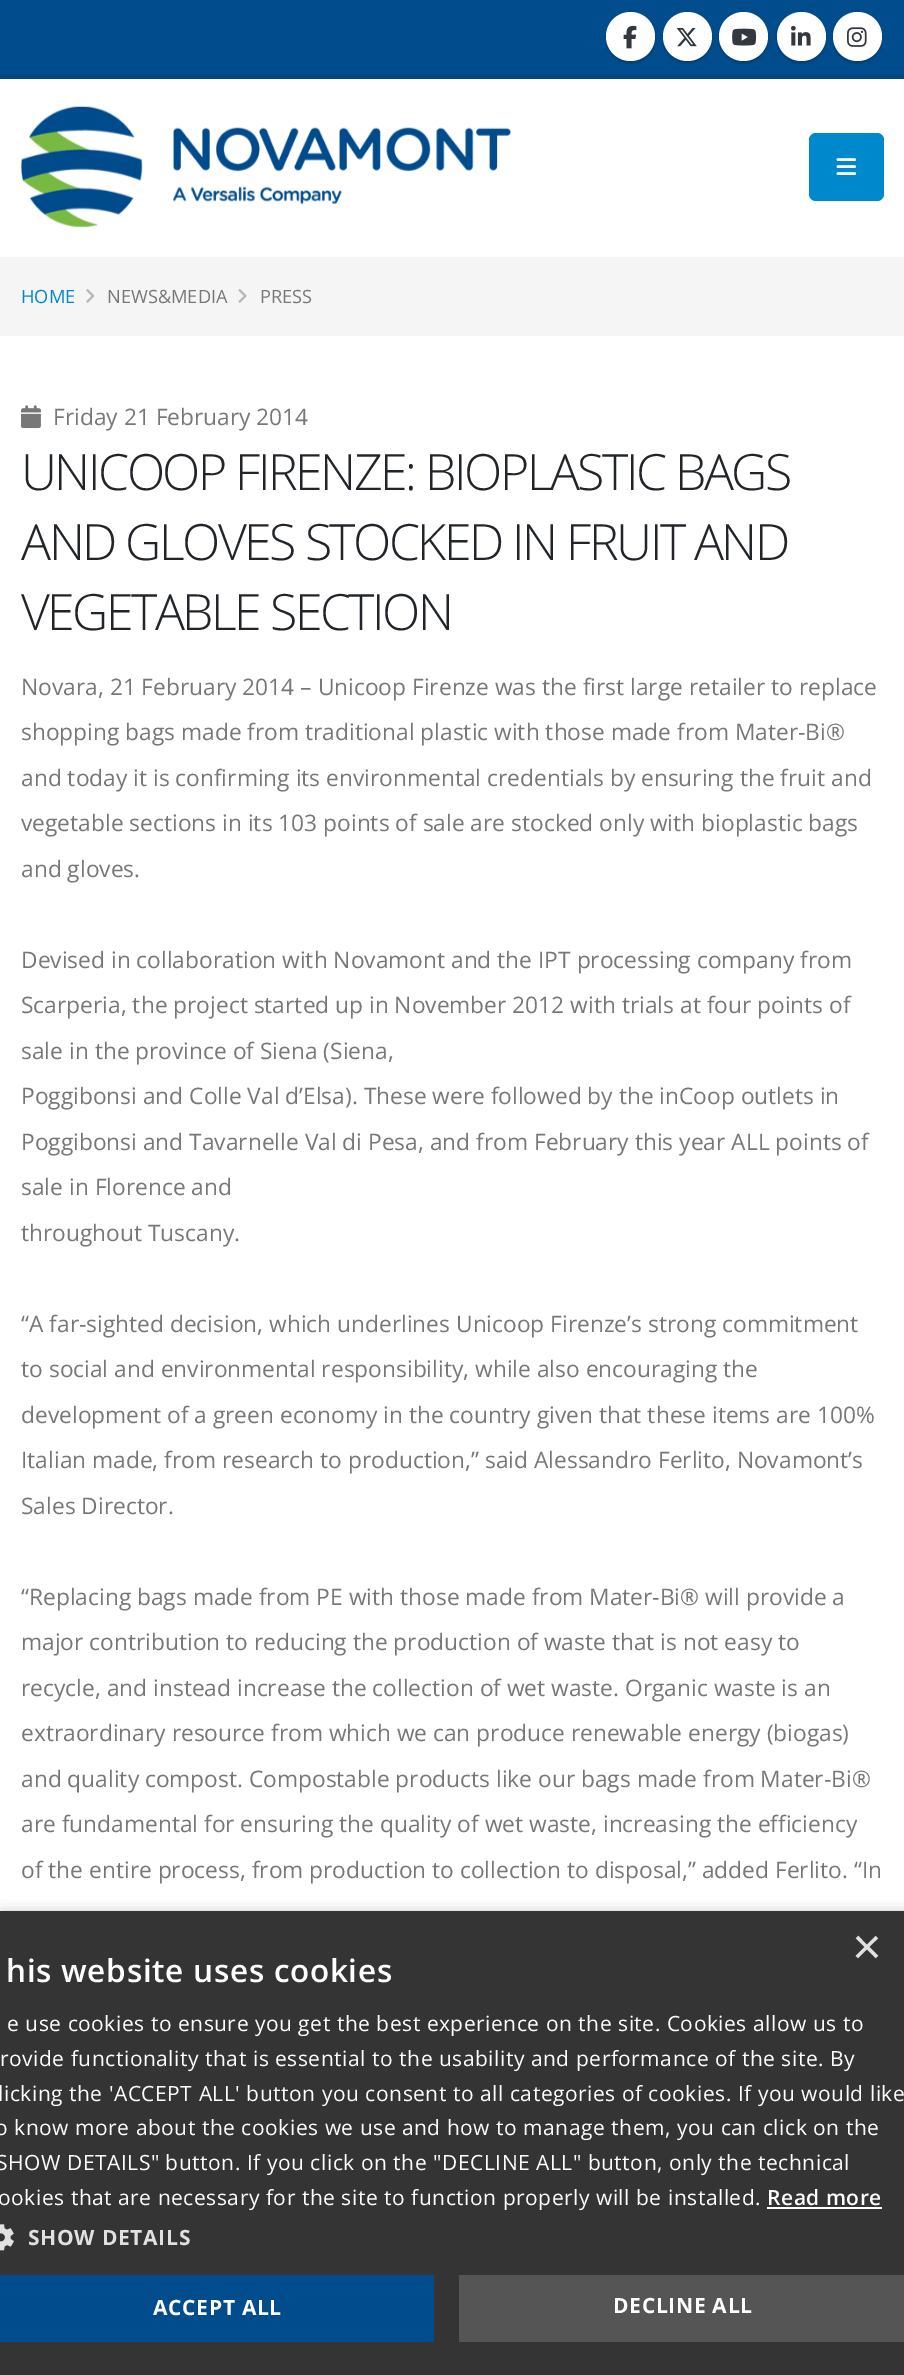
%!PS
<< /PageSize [904 2375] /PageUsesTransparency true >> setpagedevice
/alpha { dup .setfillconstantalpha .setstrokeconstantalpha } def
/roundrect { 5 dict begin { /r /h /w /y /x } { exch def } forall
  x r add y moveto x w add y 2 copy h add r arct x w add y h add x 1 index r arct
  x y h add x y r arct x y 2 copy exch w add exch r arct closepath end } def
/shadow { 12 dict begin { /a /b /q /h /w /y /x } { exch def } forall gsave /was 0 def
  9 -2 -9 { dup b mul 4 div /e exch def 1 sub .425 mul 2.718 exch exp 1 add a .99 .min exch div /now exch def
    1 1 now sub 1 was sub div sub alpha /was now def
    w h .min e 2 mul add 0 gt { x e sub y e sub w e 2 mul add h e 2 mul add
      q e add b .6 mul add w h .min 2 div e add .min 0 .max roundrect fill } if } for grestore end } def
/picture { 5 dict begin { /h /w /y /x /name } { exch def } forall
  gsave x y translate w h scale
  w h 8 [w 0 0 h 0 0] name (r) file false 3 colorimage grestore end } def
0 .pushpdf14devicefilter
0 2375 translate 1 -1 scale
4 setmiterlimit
1 setgray
0 0 904 2375 rectfill
0 0.298 0.549 setrgbcolor
0 0 904 75 rectfill
0 0.278 0.518 setrgbcolor
0 75 904 4 rectfill
0 setgray
606 14 49 49 24.5 1 0.2 shadow
1 setgray
newpath 630.5 36.5 24.5 0 360 arc closepath fill
(img1.rgb) 623 25 14 24 picture
0 setgray
663 14 49 49 24.5 1 0.2 shadow
1 setgray
newpath 687.5 36.5 24.5 0 360 arc closepath fill
(img2.rgb) 676 28 21 19 picture
0 setgray
719 14 49 49 24.5 1 0.2 shadow
1 setgray
newpath 743.5 36.5 24.5 0 360 arc closepath fill
(img3.rgb) 732 28 25 18 picture
0 setgray
777 14 49 49 24.5 1 0.2 shadow
1 setgray
newpath 801.5 36.5 24.5 0 360 arc closepath fill
(img4.rgb) 791 25 20 21 picture
0 setgray
833 14 49 49 24.5 1 0.2 shadow
1 setgray
newpath 857.5 36.5 24.5 0 360 arc closepath fill
(img5.rgb) 847 27 20 20 picture
(img6.rgb) 21 106 490 121 picture
0 0.533 0.8 setrgbcolor
809 133 75 68 7 roundrect fill
(img7.rgb) 836 158 21 17 picture
0.961 setgray
0 257 904 79 rectfill
/OpenSans-Regular [18.25 0 0 -18.25 0 0] selectfont
0 0.533 0.8 setrgbcolor
21 303 moveto (HOME) show
(img8.rgb) 86 289 9 14 picture
0.467 setgray
107 303 moveto (NEWS&MEDIA) show
(img9.rgb) 238 289 9 14 picture
260 303 moveto (PRESS) show
(img10.rgb) 21 405 20 24 picture
/OpenSans-Regular [22.75 0 0 -22.75 0 0] selectfont
53 425 moveto (Friday 21 February 2014) show
/OpenSans-Light [50 0 0 -50 0 0] selectfont
0.129 0.145 0.161 setrgbcolor
21 490 moveto -2.5 0 (UNICOOP FIRENZE: BIOPLASTIC BAGS) ashow
21 560 moveto -2.5 0 (AND GLOVES STOCKED IN FRUIT AND) ashow
21 630 moveto -2.5 0 (VEGETABLE SECTION) ashow
/OpenSans-Regular [22.75 0 0 -22.75 0 0] selectfont
0.467 setgray
21 695 moveto (Novara, 21 February 2014 – Unicoop Firenze was the first large retailer to replace) show
21 740 moveto (shopping bags made from traditional plastic with those made from Mater-Bi®) show
21 786 moveto (and today it is confirming its environmental credentials by ensuring the fruit and) show
21 831 moveto (vegetable sections in its 103 points of sale are stocked only with bioplastic bags) show
21 877 moveto (and gloves.) show
21 968 moveto (Devised in collaboration with Novamont and the IPT processing company from) show
21 1013 moveto (Scarperia, the project started up in November 2012 with trials at four points of) show
21 1059 moveto (sale in the province of Siena \(Siena,) show
21 1104 moveto (Poggibonsi and Colle Val d’Elsa\). These were followed by the inCoop outlets in) show
21 1150 moveto (Poggibonsi and Tavarnelle Val di Pesa, and from February this year ALL points of) show
21 1195 moveto (sale in Florence and) show
21 1241 moveto (throughout Tuscany.) show
21 1332 moveto (“A far-sighted decision, which underlines Unicoop Firenze’s strong commitment) show
21 1377 moveto (to social and environmental responsibility, while also encouraging the) show
21 1423 moveto (development of a green economy in the country given that these items are 100%) show
21 1468 moveto (Italian made, from research to production,” said Alessandro Ferlito, Novamont’s) show
21 1514 moveto (Sales Director.) show
21 1605 moveto (“Replacing bags made from PE with those made from Mater-Bi® will provide a) show
21 1650 moveto (major contribution to reducing the production of waste that is not easy to) show
21 1696 moveto (recycle, and instead increase the collection of wet waste. Organic waste is an) show
21 1741 moveto (extraordinary resource from which we can produce renewable energy \(biogas\)) show
21 1787 moveto (and quality compost. Compostable products like our bags made from Mater-Bi®) show
21 1832 moveto (are fundamental for ensuring the quality of wet waste, increasing the efficiency) show
21 1878 moveto (of the entire process, from production to collection to disposal,” added Ferlito. “In) show
0 setgray
2 1915 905 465 0 7 0.35 shadow
0.204 setgray
0 1911 904 464 rectfill
/LiberationSans-Regular [51 0 0 -51 0 0] selectfont
0.882 setgray
852 1964 moveto (×) show
/OpenSans-SemiBold [31.5 0 0 -31.5 0 0] selectfont
1 setgray
6 1982 moveto 0.7 0 (his website uses cookies) ashow
/OpenSans-Regular [21 0 0 -21 0 0] selectfont
7 2031 moveto 0.53 0 (e use cookies to ensure you get the best experience on the site. Cookies allow us to) ashow
0 2066 moveto 0.53 0 (rovide functionality that is essential to the usability and performance of the site. By) ashow
-2 2101 moveto 0.53 0 (licking the 'ACCEPT ALL' button you consent to all categories of cookies. If you would like) ashow
-5 2135 moveto 0.53 0 (o know more about the cookies we use and how to manage them, you can click on the) ashow
-4 2170 moveto 0.53 0 (SHOW DETAILS" button. If you click on the "DECLINE ALL" button, only the technical) ashow
-2 2205 moveto 0.53 0 (ookies that are necessary for the site to function properly will be installed.) ashow
/OpenSans-SemiBold [21 0 0 -21 0 0] selectfont
767 2205 moveto 0.53 0 (Read more) ashow
767 2207 115 2 rectfill
(img11.rgb) 0 2224 14 27 picture
/OpenSans-Bold [21 0 0 -21 0 0] selectfont
0.882 setgray
28 2245 moveto 0.7 0 (SHOW DETAILS) ashow
0 0.298 0.549 setrgbcolor
0 2275 434 67 rectfill
1 setgray
153 2315 moveto 0.7 0 (ACCEPT ALL) ashow
0.333 setgray
459 2275 445 67 rectfill
1 setgray
613 2313 moveto 0.7 0 (DECLINE ALL) ashow
.poppdf14devicefilter showpage
